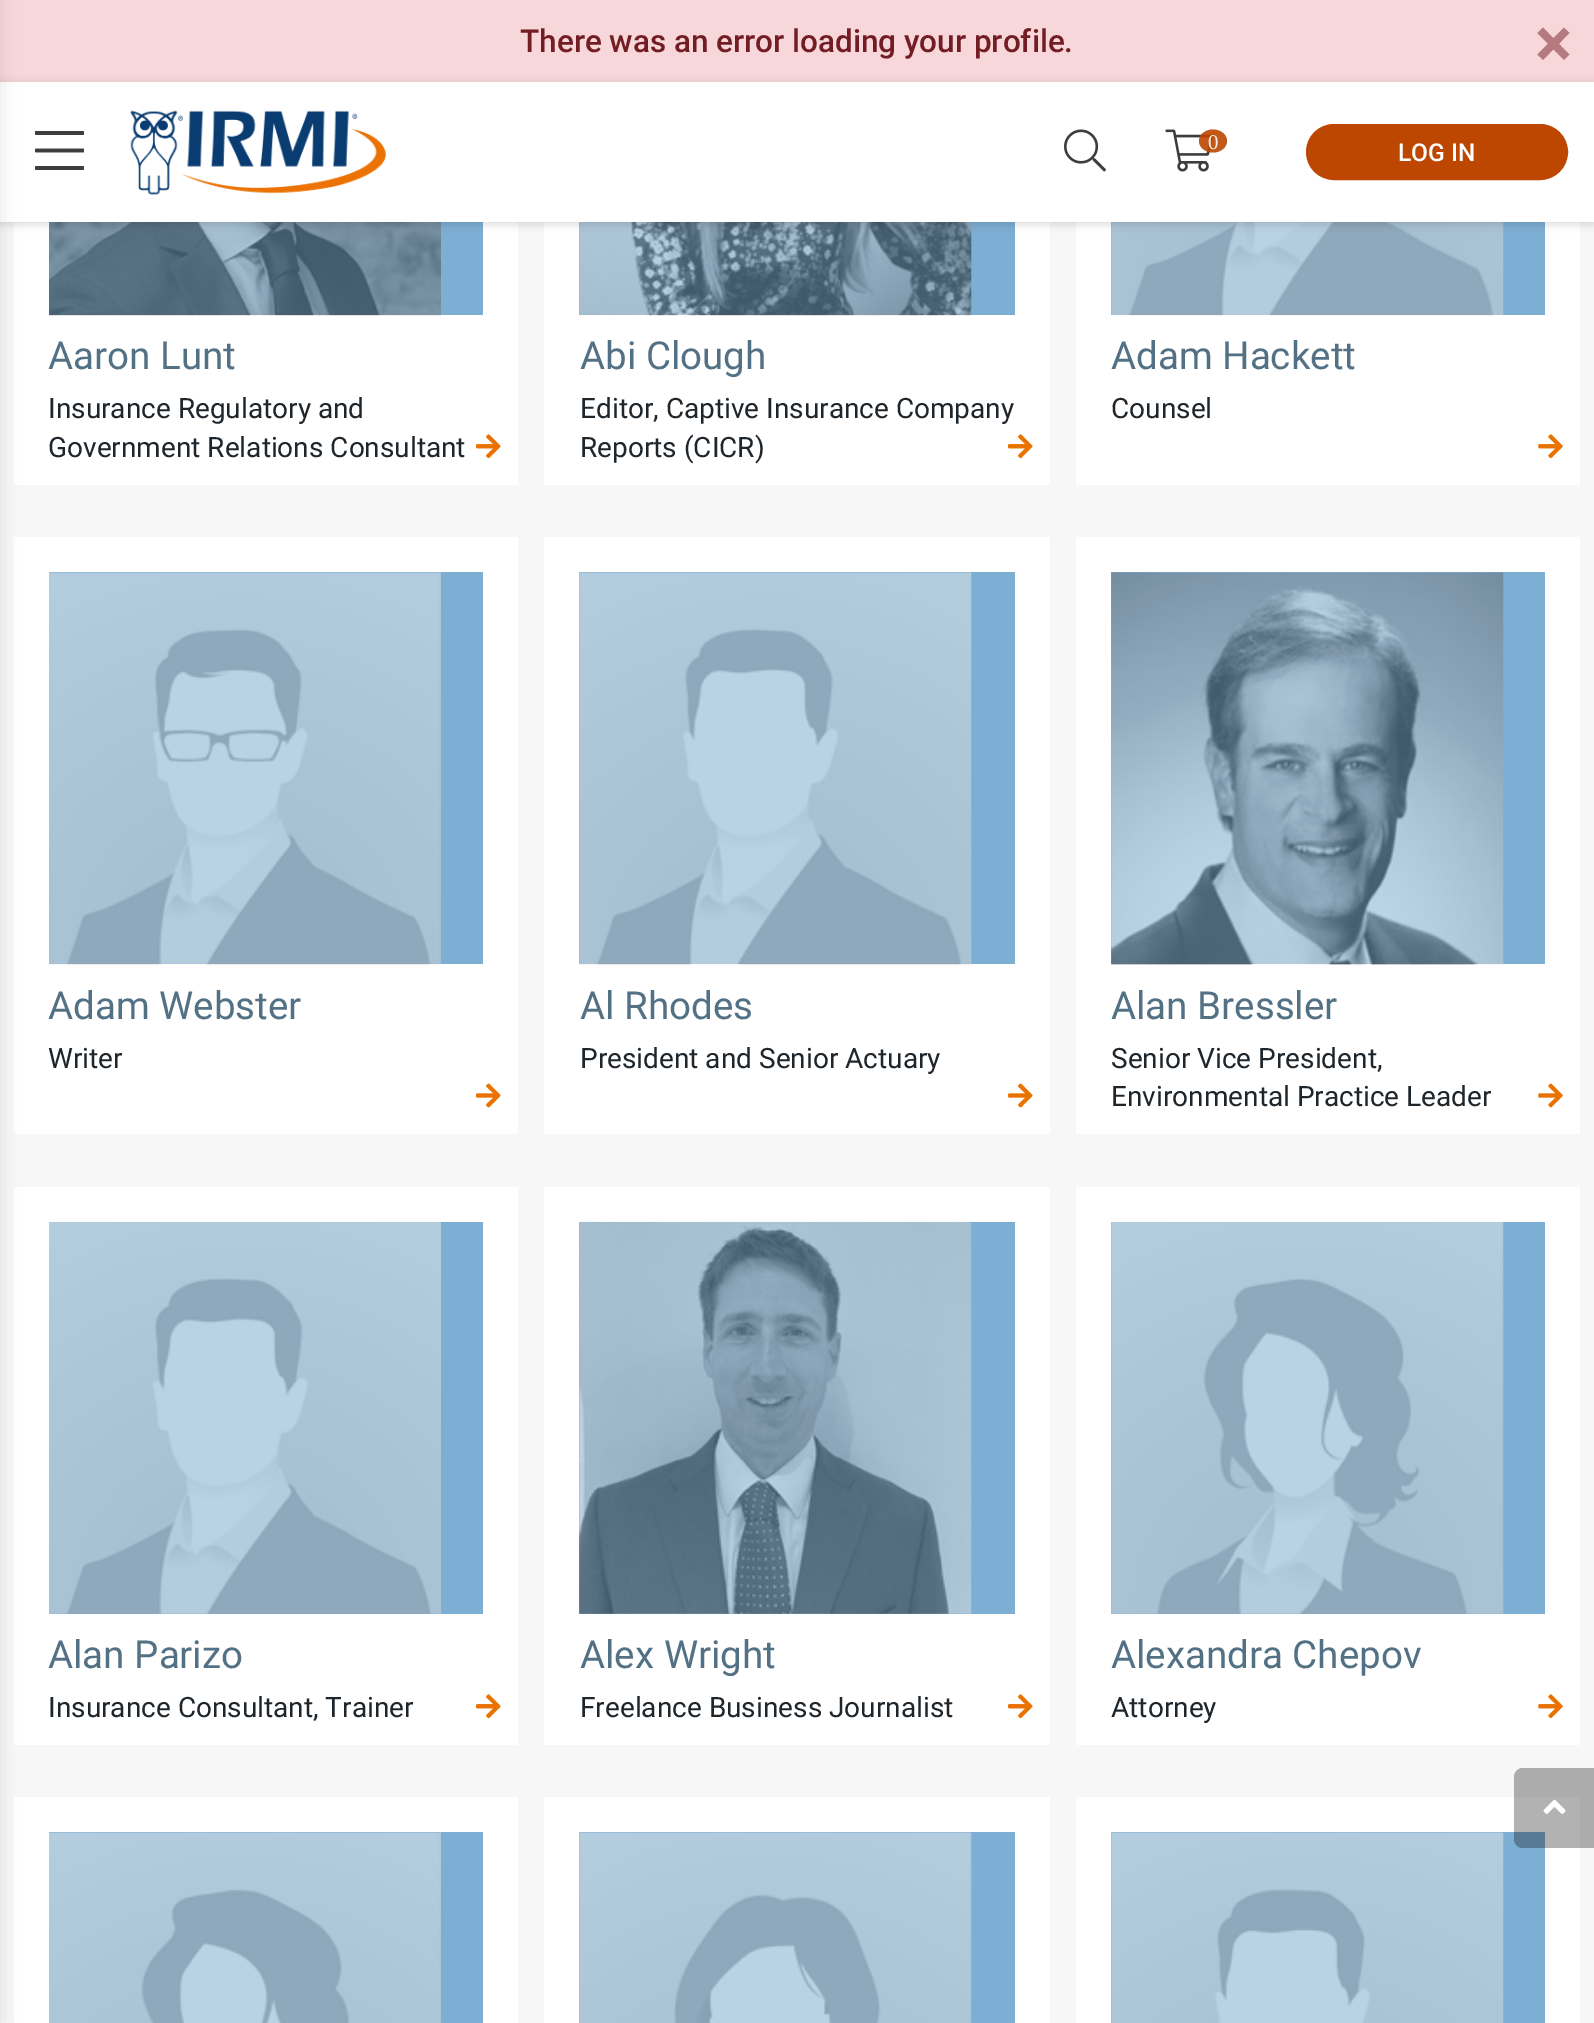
%!PS
<< /PageSize [1594 2023] /PageUsesTransparency true >> setpagedevice
/alpha { dup .setfillconstantalpha .setstrokeconstantalpha } def
/roundrect { 5 dict begin { /r /h /w /y /x } { exch def } forall
  x r add y moveto x w add y 2 copy h add r arct x w add y h add x 1 index r arct
  x y h add x y r arct x y 2 copy exch w add exch r arct closepath end } def
/shadow { 12 dict begin { /a /b /q /h /w /y /x } { exch def } forall gsave /was 0 def
  9 -2 -9 { dup b mul 4 div /e exch def 1 sub .425 mul 2.718 exch exp 1 add a .99 .min exch div /now exch def
    1 1 now sub 1 was sub div sub alpha /was now def
    w h .min e 2 mul add 0 gt { x e sub y e sub w e 2 mul add h e 2 mul add
      q e add b .6 mul add w h .min 2 div e add .min 0 .max roundrect fill } if } for grestore end } def
/picture { 5 dict begin { /h /w /y /x /name } { exch def } forall
  gsave x y translate w h scale
  w h 8 [w 0 0 h 0 0] name (r) file false 3 colorimage grestore end } def
0 .pushpdf14devicefilter
0 2023 translate 1 -1 scale
4 setmiterlimit
0.969 setgray
0 0 1594 2023 rectfill
1 setgray
0 82 1594 140 rectfill
0.973 0.843 0.855 setrgbcolor
0 0 1594 82 rectfill
1 setgray
14 222 504 263 rectfill
14 537 504 597 rectfill
14 1187 504 558 rectfill
14 1797 504 226 rectfill
0 setgray
-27 0 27 2023 0 9 0.1 shadow
/Roboto-Medium [31.5 0 0 -31.5 0 0] selectfont
0.447 0.11 0.141 setrgbcolor
520 52 moveto (There was an error loading your profile.) show
/Roboto-Bold [70 0 0 -70 0 0] selectfont
0.71 0.478 0.498 setrgbcolor
1535 67 moveto (×) show
0.49 0.682 0.827 setrgbcolor
49 222 434 93 rectfill
(img5.rgb) 49 222 392 94 picture
1 setgray
544 222 506 263 rectfill
0.49 0.682 0.827 setrgbcolor
579 222 436 93 rectfill
(img7.rgb) 579 222 393 94 picture
1 setgray
1076 222 504 263 rectfill
0.49 0.682 0.827 setrgbcolor
1111 222 434 93 rectfill
(img8.rgb) 1111 222 393 94 picture
gsave
newpath 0 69 moveto 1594 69 lineto 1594 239 lineto 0 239 lineto closepath 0 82 moveto 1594 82 lineto 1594 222 lineto 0 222 lineto closepath eoclip newpath
0 setgray
0 84 1594 140 0 4.5 0.15 shadow
grestore
(img1.rgb) 35 131 49 39 picture
(img2.rgb) 130 110 256 85 picture
(img3.rgb) 1064 129 42 43 picture
(img4.rgb) 1165 129 48 43 picture
0.9 alpha
0.741 0.278 0 setrgbcolor
newpath 1213 129.5 moveto 1220.5 129.5 1227 134.5 1227 141 curveto 1227 147.5 1220.5 152.5 1213 152.5 curveto 1205.5 152.5 1199 147.5 1199 141 curveto 1199 134.5 1205.5 129.5 1213 129.5 curveto closepath fill
/LiberationSerif-Regular [21 0 0 -21 0 0] selectfont
1 alpha
0.973 0.933 0.906 setrgbcolor
1208 149 moveto (0) show
0.741 0.278 0 setrgbcolor
1307 125 260 54 27 roundrect gsave fill grestore
2 setlinewidth
stroke
/Roboto-Medium [24.5 0 0 -24.5 0 0] selectfont
1 setgray
1398 161 moveto (LOG IN) show
/Roboto-Regular [38.5 0 0 -38.5 0 0] selectfont
0.325 0.443 0.522 setrgbcolor
48 369 moveto (Aaron Lunt) show
/Roboto-Regular [28 0 0 -28 0 0] selectfont
0.118 0.145 0.169 setrgbcolor
48 418 moveto (Insurance Regulatory and) show
48 457 moveto (Government Relations Consultant) show
(img6.rgb) 476 434 25 25 picture
/Roboto-Regular [38.5 0 0 -38.5 0 0] selectfont
0.325 0.443 0.522 setrgbcolor
580 369 moveto (Abi Clough) show
/Roboto-Regular [28 0 0 -28 0 0] selectfont
0.118 0.145 0.169 setrgbcolor
580 418 moveto (Editor, Captive Insurance Company) show
580 457 moveto (Reports \(CICR\)) show
(img6.rgb) 1008 434 25 25 picture
/Roboto-Regular [38.5 0 0 -38.5 0 0] selectfont
0.325 0.443 0.522 setrgbcolor
1111 369 moveto (Adam Hackett) show
/Roboto-Regular [28 0 0 -28 0 0] selectfont
0.118 0.145 0.169 setrgbcolor
1111 418 moveto (Counsel) show
(img9.rgb) 1538 434 25 25 picture
0.49 0.682 0.827 setrgbcolor
49 572 434 392 rectfill
(img10.rgb) 49 572 392 393 picture
/Roboto-Regular [38.5 0 0 -38.5 0 0] selectfont
0.325 0.443 0.522 setrgbcolor
48 1019 moveto (Adam Webster) show
/Roboto-Regular [28 0 0 -28 0 0] selectfont
0.118 0.145 0.169 setrgbcolor
48 1068 moveto (Writer) show
(img11.rgb) 476 1083 25 25 picture
1 setgray
544 537 506 597 rectfill
0.49 0.682 0.827 setrgbcolor
579 572 436 392 rectfill
(img12.rgb) 579 572 393 393 picture
/Roboto-Regular [38.5 0 0 -38.5 0 0] selectfont
0.325 0.443 0.522 setrgbcolor
580 1019 moveto (Al Rhodes) show
/Roboto-Regular [28 0 0 -28 0 0] selectfont
0.118 0.145 0.169 setrgbcolor
580 1068 moveto (President and Senior Actuary) show
(img11.rgb) 1008 1083 25 25 picture
1 setgray
1076 537 504 597 rectfill
0.49 0.682 0.827 setrgbcolor
1111 572 434 392 rectfill
(img13.rgb) 1111 572 393 393 picture
/Roboto-Regular [38.5 0 0 -38.5 0 0] selectfont
0.325 0.443 0.522 setrgbcolor
1111 1019 moveto (Alan Bressler) show
/Roboto-Regular [28 0 0 -28 0 0] selectfont
0.118 0.145 0.169 setrgbcolor
1111 1068 moveto (Senior Vice President,) show
1111 1106 moveto (Environmental Practice Leader) show
(img14.rgb) 1538 1083 25 25 picture
0.49 0.682 0.827 setrgbcolor
49 1222 434 392 rectfill
(img15.rgb) 49 1222 392 392 picture
/Roboto-Regular [38.5 0 0 -38.5 0 0] selectfont
0.325 0.443 0.522 setrgbcolor
48 1668 moveto (Alan Parizo) show
/Roboto-Regular [28 0 0 -28 0 0] selectfont
0.118 0.145 0.169 setrgbcolor
48 1717 moveto (Insurance Consultant, Trainer) show
(img6.rgb) 476 1694 25 25 picture
1 setgray
544 1187 506 558 rectfill
0.49 0.682 0.827 setrgbcolor
579 1222 436 392 rectfill
(img16.rgb) 579 1221 393 393 picture
/Roboto-Regular [38.5 0 0 -38.5 0 0] selectfont
0.325 0.443 0.522 setrgbcolor
580 1668 moveto (Alex Wright) show
/Roboto-Regular [28 0 0 -28 0 0] selectfont
0.118 0.145 0.169 setrgbcolor
580 1717 moveto (Freelance Business Journalist) show
(img6.rgb) 1008 1694 25 25 picture
1 setgray
1076 1187 504 558 rectfill
0.49 0.682 0.827 setrgbcolor
1111 1222 434 392 rectfill
(img17.rgb) 1111 1222 393 392 picture
/Roboto-Regular [38.5 0 0 -38.5 0 0] selectfont
0.325 0.443 0.522 setrgbcolor
1111 1668 moveto (Alexandra Chepov) show
/Roboto-Regular [28 0 0 -28 0 0] selectfont
0.118 0.145 0.169 setrgbcolor
1111 1717 moveto (Attorney) show
(img9.rgb) 1538 1694 25 25 picture
0.49 0.682 0.827 setrgbcolor
49 1832 434 191 rectfill
(img18.rgb) 49 1832 392 191 picture
1 setgray
544 1797 506 226 rectfill
0.49 0.682 0.827 setrgbcolor
579 1832 436 191 rectfill
(img19.rgb) 579 1832 393 191 picture
1 setgray
1076 1797 504 226 rectfill
0.49 0.682 0.827 setrgbcolor
1111 1832 434 191 rectfill
(img20.rgb) 1111 1832 393 191 picture
0.3 alpha
0 setgray
newpath 1523 1768 moveto 1594 1768 lineto 1594 1848 lineto 1523 1848 lineto 1518 1848 1514 1844 1514 1839 curveto 1514 1777 lineto 1514 1772 1518 1768 1523 1768 curveto closepath fill
1 alpha
(img21.rgb) 1543 1799 23 15 picture
.poppdf14devicefilter showpage
